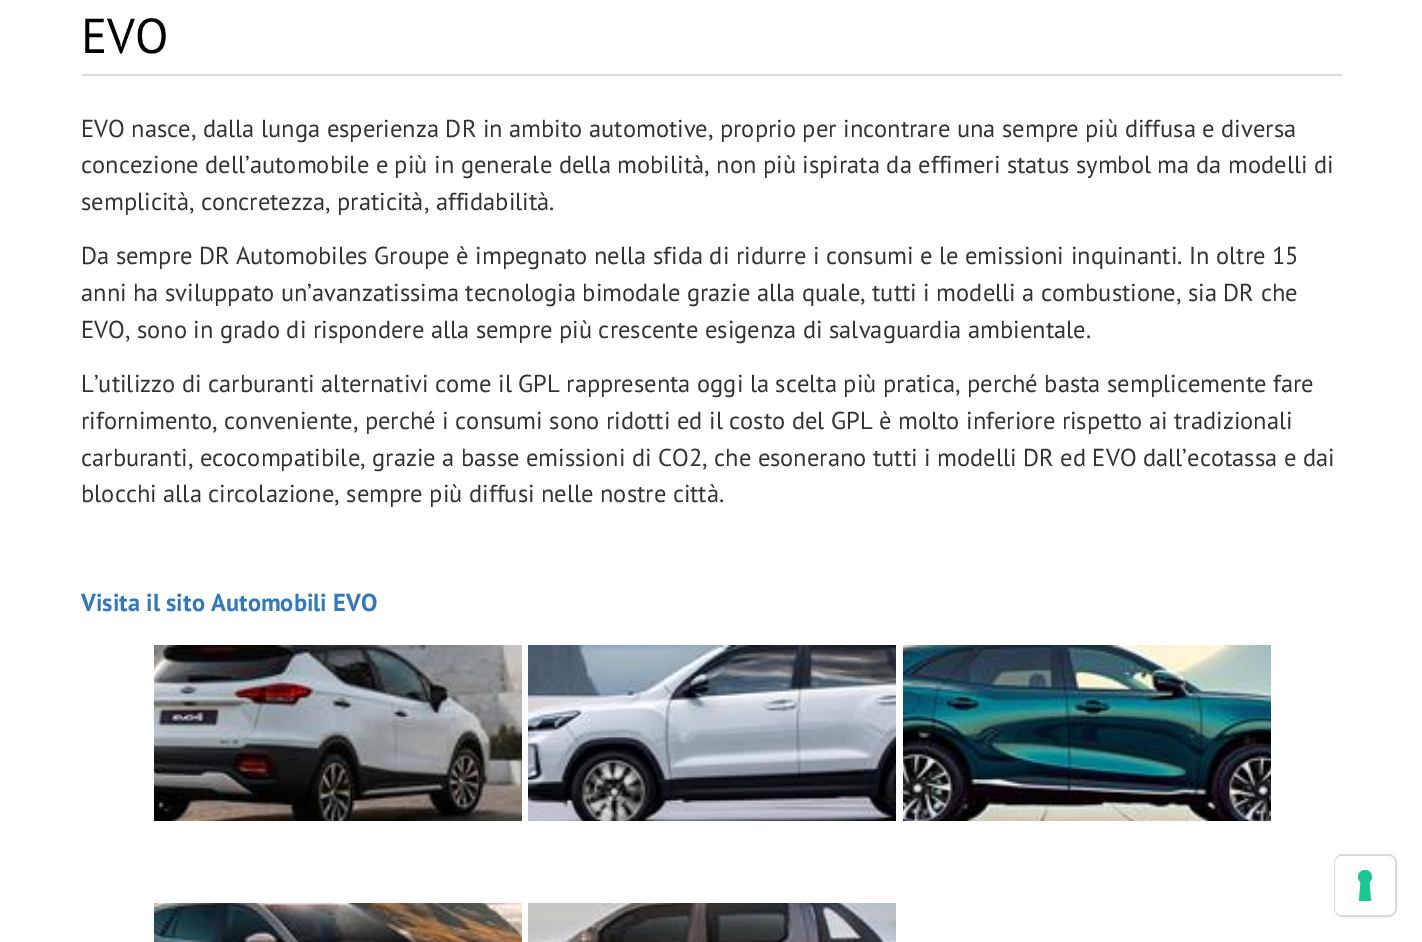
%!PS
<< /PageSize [1422 942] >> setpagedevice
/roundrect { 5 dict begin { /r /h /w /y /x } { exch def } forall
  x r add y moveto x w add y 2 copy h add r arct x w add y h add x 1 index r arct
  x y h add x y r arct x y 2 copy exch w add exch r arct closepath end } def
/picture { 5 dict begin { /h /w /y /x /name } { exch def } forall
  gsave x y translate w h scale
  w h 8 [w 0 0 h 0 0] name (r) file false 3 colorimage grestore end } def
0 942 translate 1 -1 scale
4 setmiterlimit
1 setgray
0 0 1422 942 rectfill
0.863 setgray
82 74 1260 2 rectfill
/PTSans-Regular [49 0 0 -49 0 0] selectfont
0 setgray
81 53 moveto (EVO) show
/PTSans-Regular [24.5 0 0 -24.5 0 0] selectfont
0.2 setgray
81 137 moveto (EVO nasce, dalla lunga esperienza DR in ambito automotive, proprio per incontrare una sempre più diffusa e diversa) show
81 173 moveto (concezione dell’automobile e più in generale della mobilità, non più ispirata da effimeri status symbol ma da modelli di) show
81 210 moveto (semplicità, concretezza, praticità, affidabilità.) show
81 264 moveto (Da sempre DR Automobiles Groupe è impegnato nella sfida di ridurre i consumi e le emissioni inquinanti. In oltre 15) show
81 301 moveto (anni ha sviluppato un’avanzatissima tecnologia bimodale grazie alla quale, tutti i modelli a combustione, sia DR che) show
81 338 moveto (EVO, sono in grado di rispondere alla sempre più crescente esigenza di salvaguardia ambientale.) show
81 392 moveto (L’utilizzo di carburanti alternativi come il GPL rappresenta oggi la scelta più pratica, perché basta semplicemente fare) show
81 429 moveto (rifornimento, conveniente, perché i consumi sono ridotti ed il costo del GPL è molto inferiore rispetto ai tradizionali) show
81 466 moveto (carburanti, ecocompatibile, grazie a basse emissioni di CO2, che esonerano tutti i modelli DR ed EVO dall’ecotassa e dai) show
81 502 moveto (blocchi alla circolazione, sempre più diffusi nelle nostre città.) show
/PTSans-Bold [24.5 0 0 -24.5 0 0] selectfont
0.2 0.478 0.718 setrgbcolor
81 611 moveto (Visita il sito Automobili EVO) show
(img1.rgb) 154 645 368 176 picture
(img2.rgb) 528 645 368 176 picture
(img3.rgb) 903 645 368 176 picture
(img4.rgb) 154 903 368 39 picture
(img5.rgb) 528 903 368 39 picture
0.851 setgray
2 setlinewidth
1335 855 61 61 8 roundrect stroke
1 setgray
1335 856 60 59 7 roundrect fill
0.11 0.776 0.569 setrgbcolor
newpath 1365 870 moveto 1371.5 870 1374.5 878 1369.5 882 curveto 1371 901 lineto 1359 901 lineto 1360.5 882 lineto 1355.5 878 1358.5 870 1365 870 curveto closepath eofill
showpage
